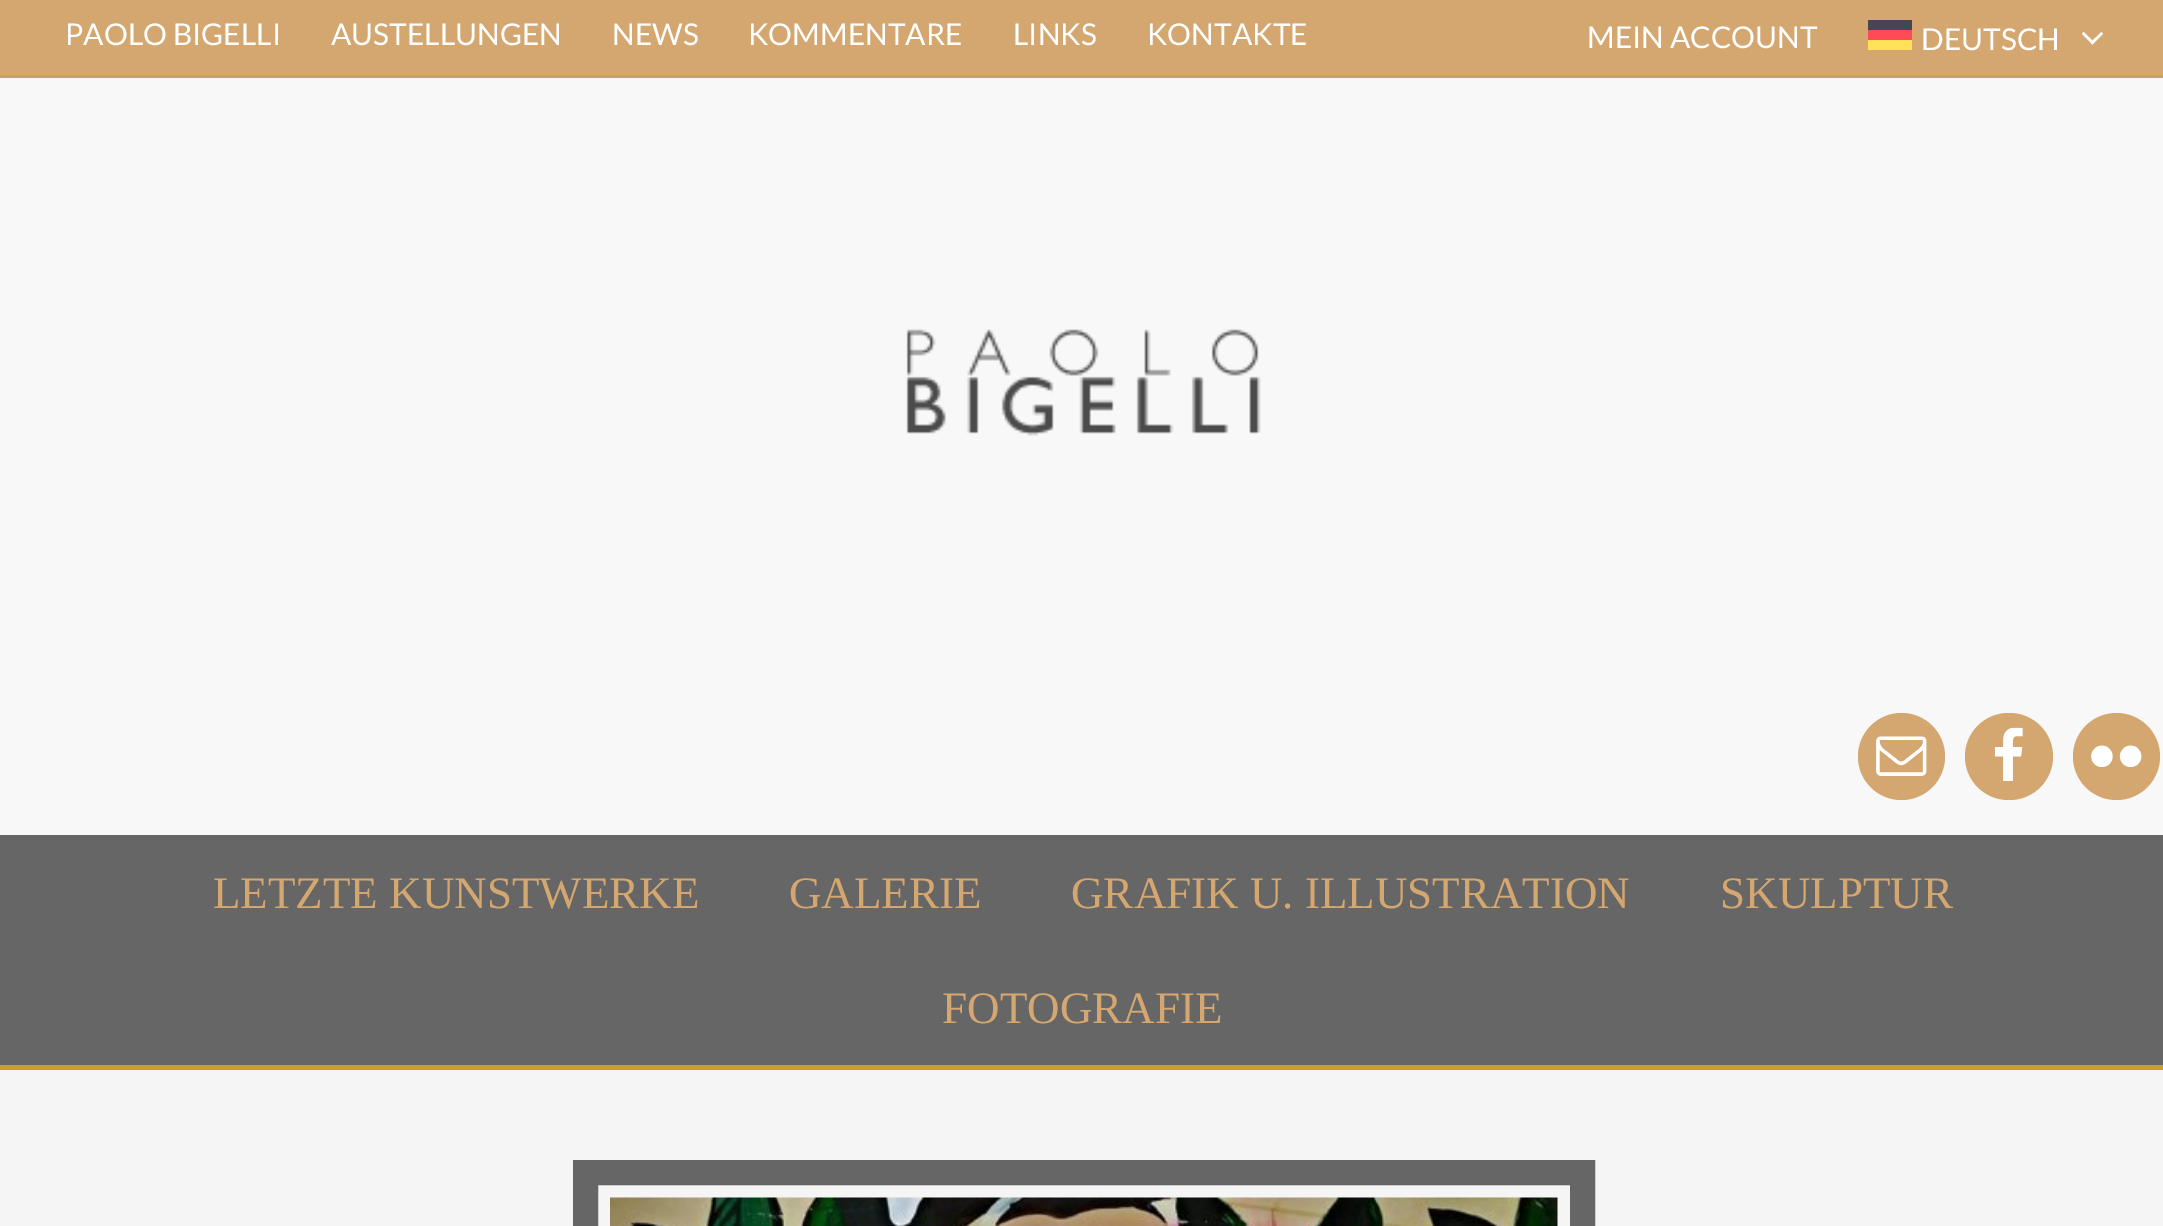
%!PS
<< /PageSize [2163 1226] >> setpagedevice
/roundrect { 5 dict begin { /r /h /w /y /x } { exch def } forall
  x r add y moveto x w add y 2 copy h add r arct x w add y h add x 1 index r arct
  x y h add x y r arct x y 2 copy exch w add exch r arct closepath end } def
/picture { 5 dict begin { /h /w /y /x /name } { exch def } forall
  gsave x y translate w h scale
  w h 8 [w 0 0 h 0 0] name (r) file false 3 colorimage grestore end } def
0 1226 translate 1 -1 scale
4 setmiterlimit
0.961 setgray
0 0 2163 1226 rectfill
0.835 0.655 0.439 setrgbcolor
0 0 2163 75 rectfill
0.792 0.624 0.416 setrgbcolor
0 75 2163 3 rectfill
/Lato-Regular [30 0 0 -30 0 0] selectfont
1 setgray
65 45 moveto (PAOLO BIGELLI) show
331 45 moveto (AUSTELLUNGEN) show
612 45 moveto (NEWS) show
748 45 moveto (KOMMENTARE) show
1013 45 moveto (LINKS) show
1147 45 moveto (KONTAKTE) show
1587 48 moveto (MEIN ACCOUNT) show
0.275 0.275 0.333 setrgbcolor
1868 20 44 10 rectfill
1 0.294 0.333 setrgbcolor
1868 30 44 10 rectfill
1 setgray
1921 50 moveto (DEUTSCH) show
1 0.882 0.353 setrgbcolor
1868 40 44 10 rectfill
1 setgray
newpath 2101.5 32 moveto 2103 34 lineto 2092.5 44.5 lineto 2090.5 42.5 lineto closepath fill
newpath 2083.5 32 moveto 2094.5 42.5 lineto 2092.5 44.5 lineto 2082 34 lineto closepath fill
0.973 setgray
0 78 2163 757 rectfill
(img1.rgb) 906 329 355 107 picture
0.835 0.655 0.439 setrgbcolor
newpath 1901.5 756.5 43.5 0 360 arc closepath fill
(img2.rgb) 1876 736 51 40 picture
1965 713 88 87 43.5 roundrect fill
(img3.rgb) 1994 727 29 54 picture
newpath 2116.5 756.5 43.5 0 360 arc closepath fill
(img4.rgb) 2091 745 51 22 picture
0.4 setgray
0 835 2163 230 rectfill
0.784 0.627 0.165 setrgbcolor
0 1065 2163 5 rectfill
/LiberationSerif-Regular [45 0 0 -45 0 0] selectfont
0.835 0.655 0.439 setrgbcolor
213 908 moveto (LETZTE KUNSTWERKE) show
789 908 moveto (GALERIE) show
1071 908 moveto (GRAFIK U. ILLUSTRATION) show
1720 908 moveto (SKULPTUR) show
942 1023 moveto (FOTOGRAFIE) show
0.4 setgray
25 setlinewidth
585.5 1172.5 997 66 rectstroke
(img5.rgb) 610 1197 948 29 picture
showpage
